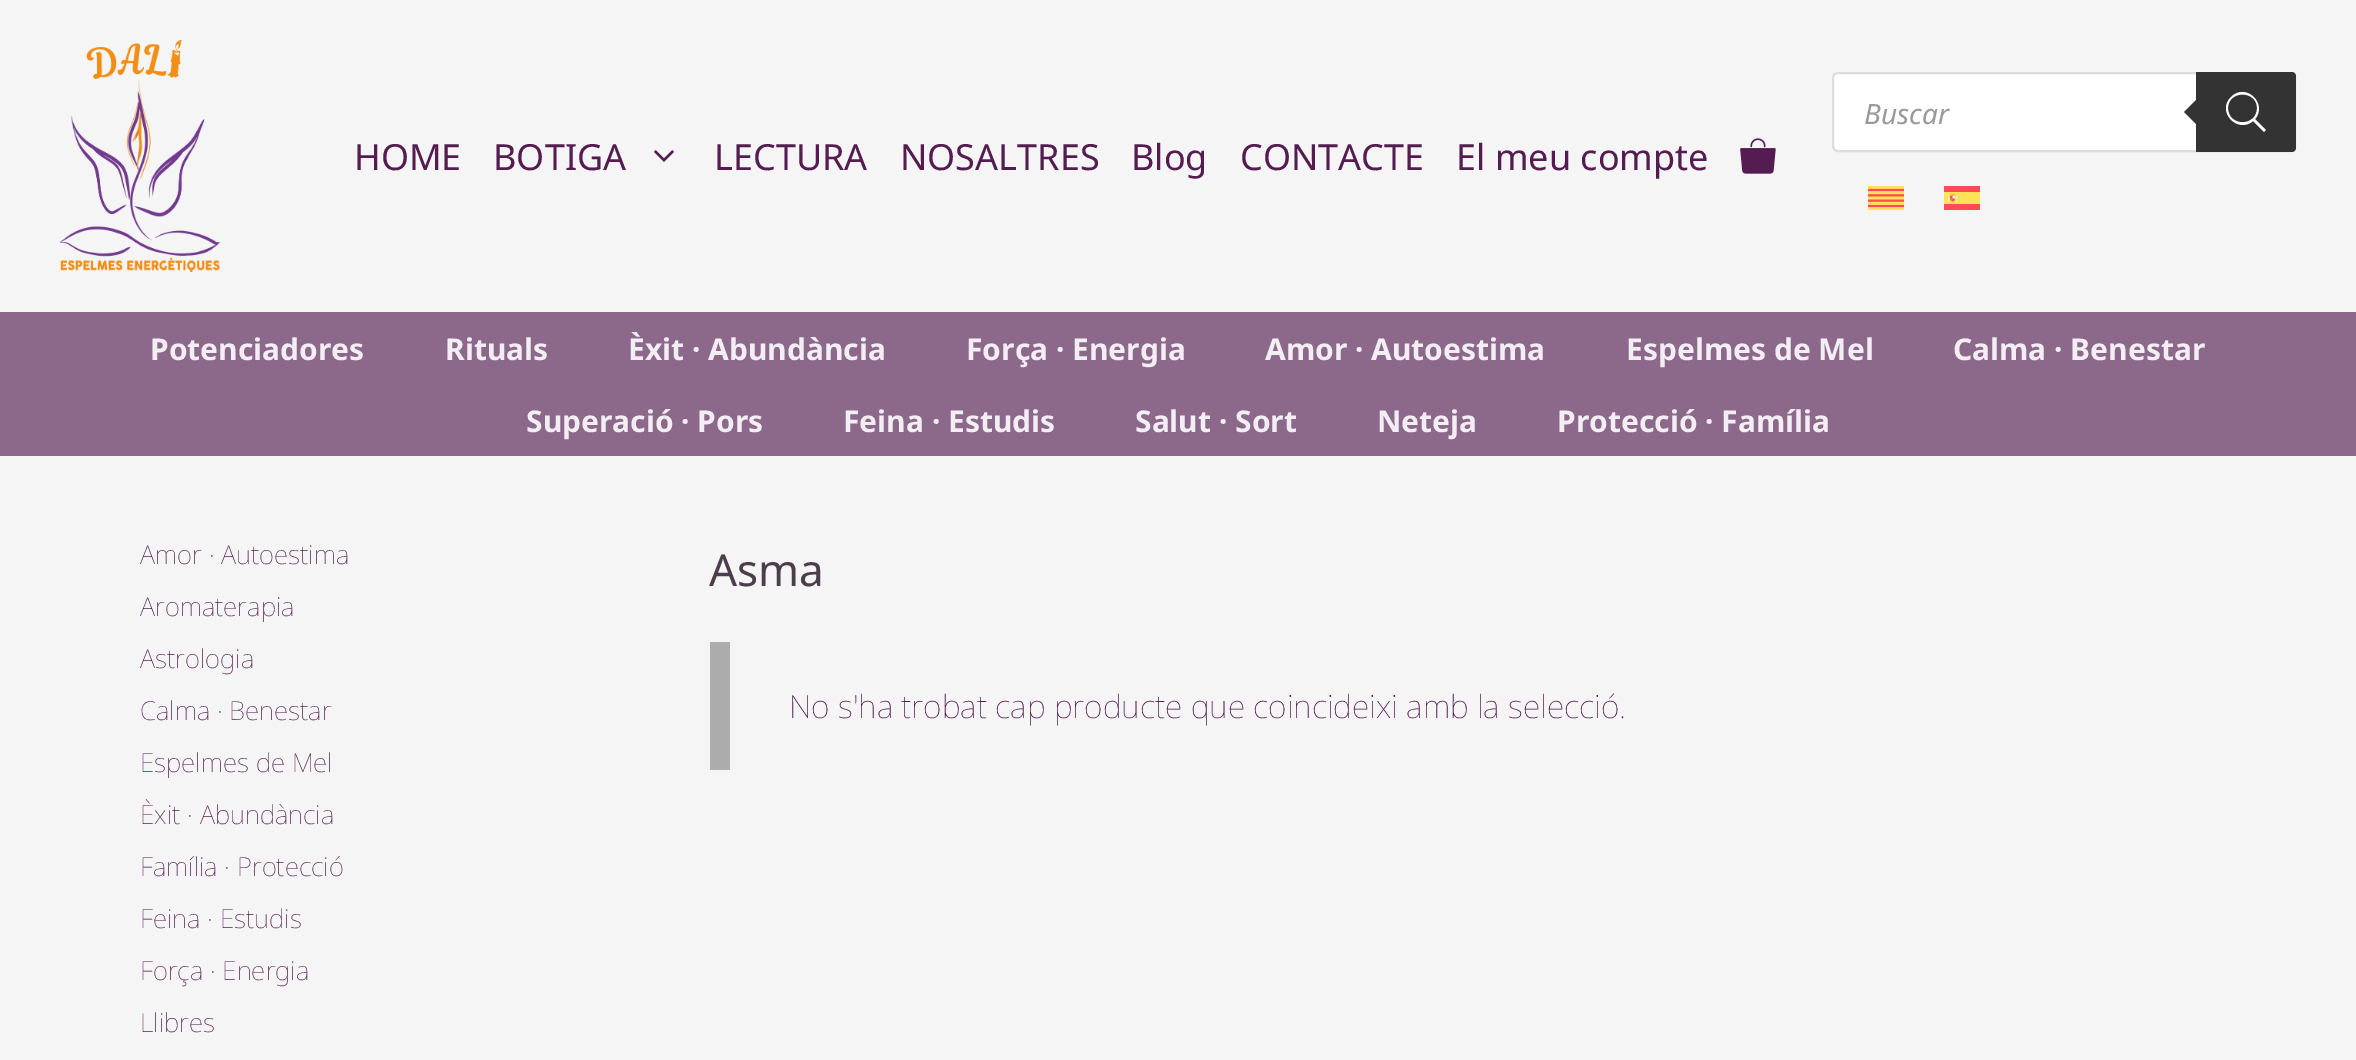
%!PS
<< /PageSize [2356 1060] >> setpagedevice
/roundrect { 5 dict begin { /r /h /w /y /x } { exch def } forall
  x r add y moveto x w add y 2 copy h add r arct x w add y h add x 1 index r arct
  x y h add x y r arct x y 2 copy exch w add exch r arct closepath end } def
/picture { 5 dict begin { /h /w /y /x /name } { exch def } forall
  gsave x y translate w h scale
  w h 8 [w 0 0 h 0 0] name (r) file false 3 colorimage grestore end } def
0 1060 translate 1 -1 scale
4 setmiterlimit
0.961 setgray
0 0 2356 1060 rectfill
(img1.rgb) 60 40 160 232 picture
1 setgray
1833 73 462 78 5 roundrect gsave fill grestore
0.867 setgray
2 setlinewidth
stroke
/NotoSans-Italic [28 0 0 -28 0 0] selectfont
0.6 setgray
1864 124 moveto (Buscar) show
0.2 setgray
newpath 2196 72 moveto 2292 72 lineto 2294 72 2296 74 2296 76 curveto 2296 148 lineto 2296 150 2294 152 2292 152 curveto 2196 152 lineto closepath fill
newpath 2200 96 moveto 2200 128 lineto 2184 112 lineto closepath fill
1 setgray
newpath 2266 130 moveto 2255 119 lineto 2268 104 2246 82 2231 97 curveto 2216 112 2238 134 2253 121 curveto 2264 132 lineto closepath 2228 108 moveto 2228 90 2257 90 2257 108 curveto 2257 127 2228 127 2228 108 curveto closepath fill
(img2.rgb) 1868 186 36 24 picture
(img3.rgb) 1944 186 36 24 picture
/NotoSans-Regular [36 0 0 -36 0 0] selectfont
0.329 0.11 0.314 setrgbcolor
354 170 moveto (HOME) show
493 170 moveto (BOTIGA) show
(img4.rgb) 654 150 20 12 picture
714 170 moveto (LECTURA) show
900 170 moveto (NOSALTRES) show
1131 170 moveto (Blog) show
1240 170 moveto (CONTACTE) show
1456 170 moveto (El meu compte) show
(img5.rgb) 1740 138 36 36 picture
0.549 0.408 0.541 setrgbcolor
0 312 2356 144 rectfill
/NotoSans-Bold [30 0 0 -30 0 0] selectfont
0.953 0.929 0.957 setrgbcolor
150 360 moveto (Potenciadores) show
445 360 moveto (Rituals) show
628 360 moveto (Èxit · Abundància) show
966 360 moveto (Força · Energia) show
1265 360 moveto (Amor · Autoestima) show
1626 360 moveto (Espelmes de Mel) show
1953 360 moveto (Calma · Benestar) show
526 432 moveto (Superació · Pors) show
843 432 moveto (Feina · Estudis) show
1135 432 moveto (Salut · Sort) show
1377 432 moveto (Neteja) show
1557 432 moveto (Protecció · Família) show
/NotoSans-Thin [26 0 0 -26 0 0] selectfont
0.329 0.11 0.314 setrgbcolor
140 564 moveto (Amor · Autoestima) show
140 616 moveto (Aromaterapia) show
140 668 moveto (Astrologia) show
140 720 moveto (Calma · Benestar) show
140 772 moveto (Espelmes de Mel) show
140 824 moveto (Èxit · Abundància) show
140 876 moveto (Família · Protecció) show
140 928 moveto (Feina · Estudis) show
140 980 moveto (Força · Energia) show
140 1032 moveto (Llibres) show
/NotoSans-Regular [44 0 0 -44 0 0] selectfont
0.298 0.239 0.298 setrgbcolor
709 586 moveto (Asma) show
0.675 setgray
710 642 20 128 rectfill
/NotoSans-Thin [32 0 0 -32 0 0] selectfont
0.329 0.11 0.314 setrgbcolor
789 718 moveto (No s'ha trobat cap producte que coincideixi amb la selecció.) show
showpage
